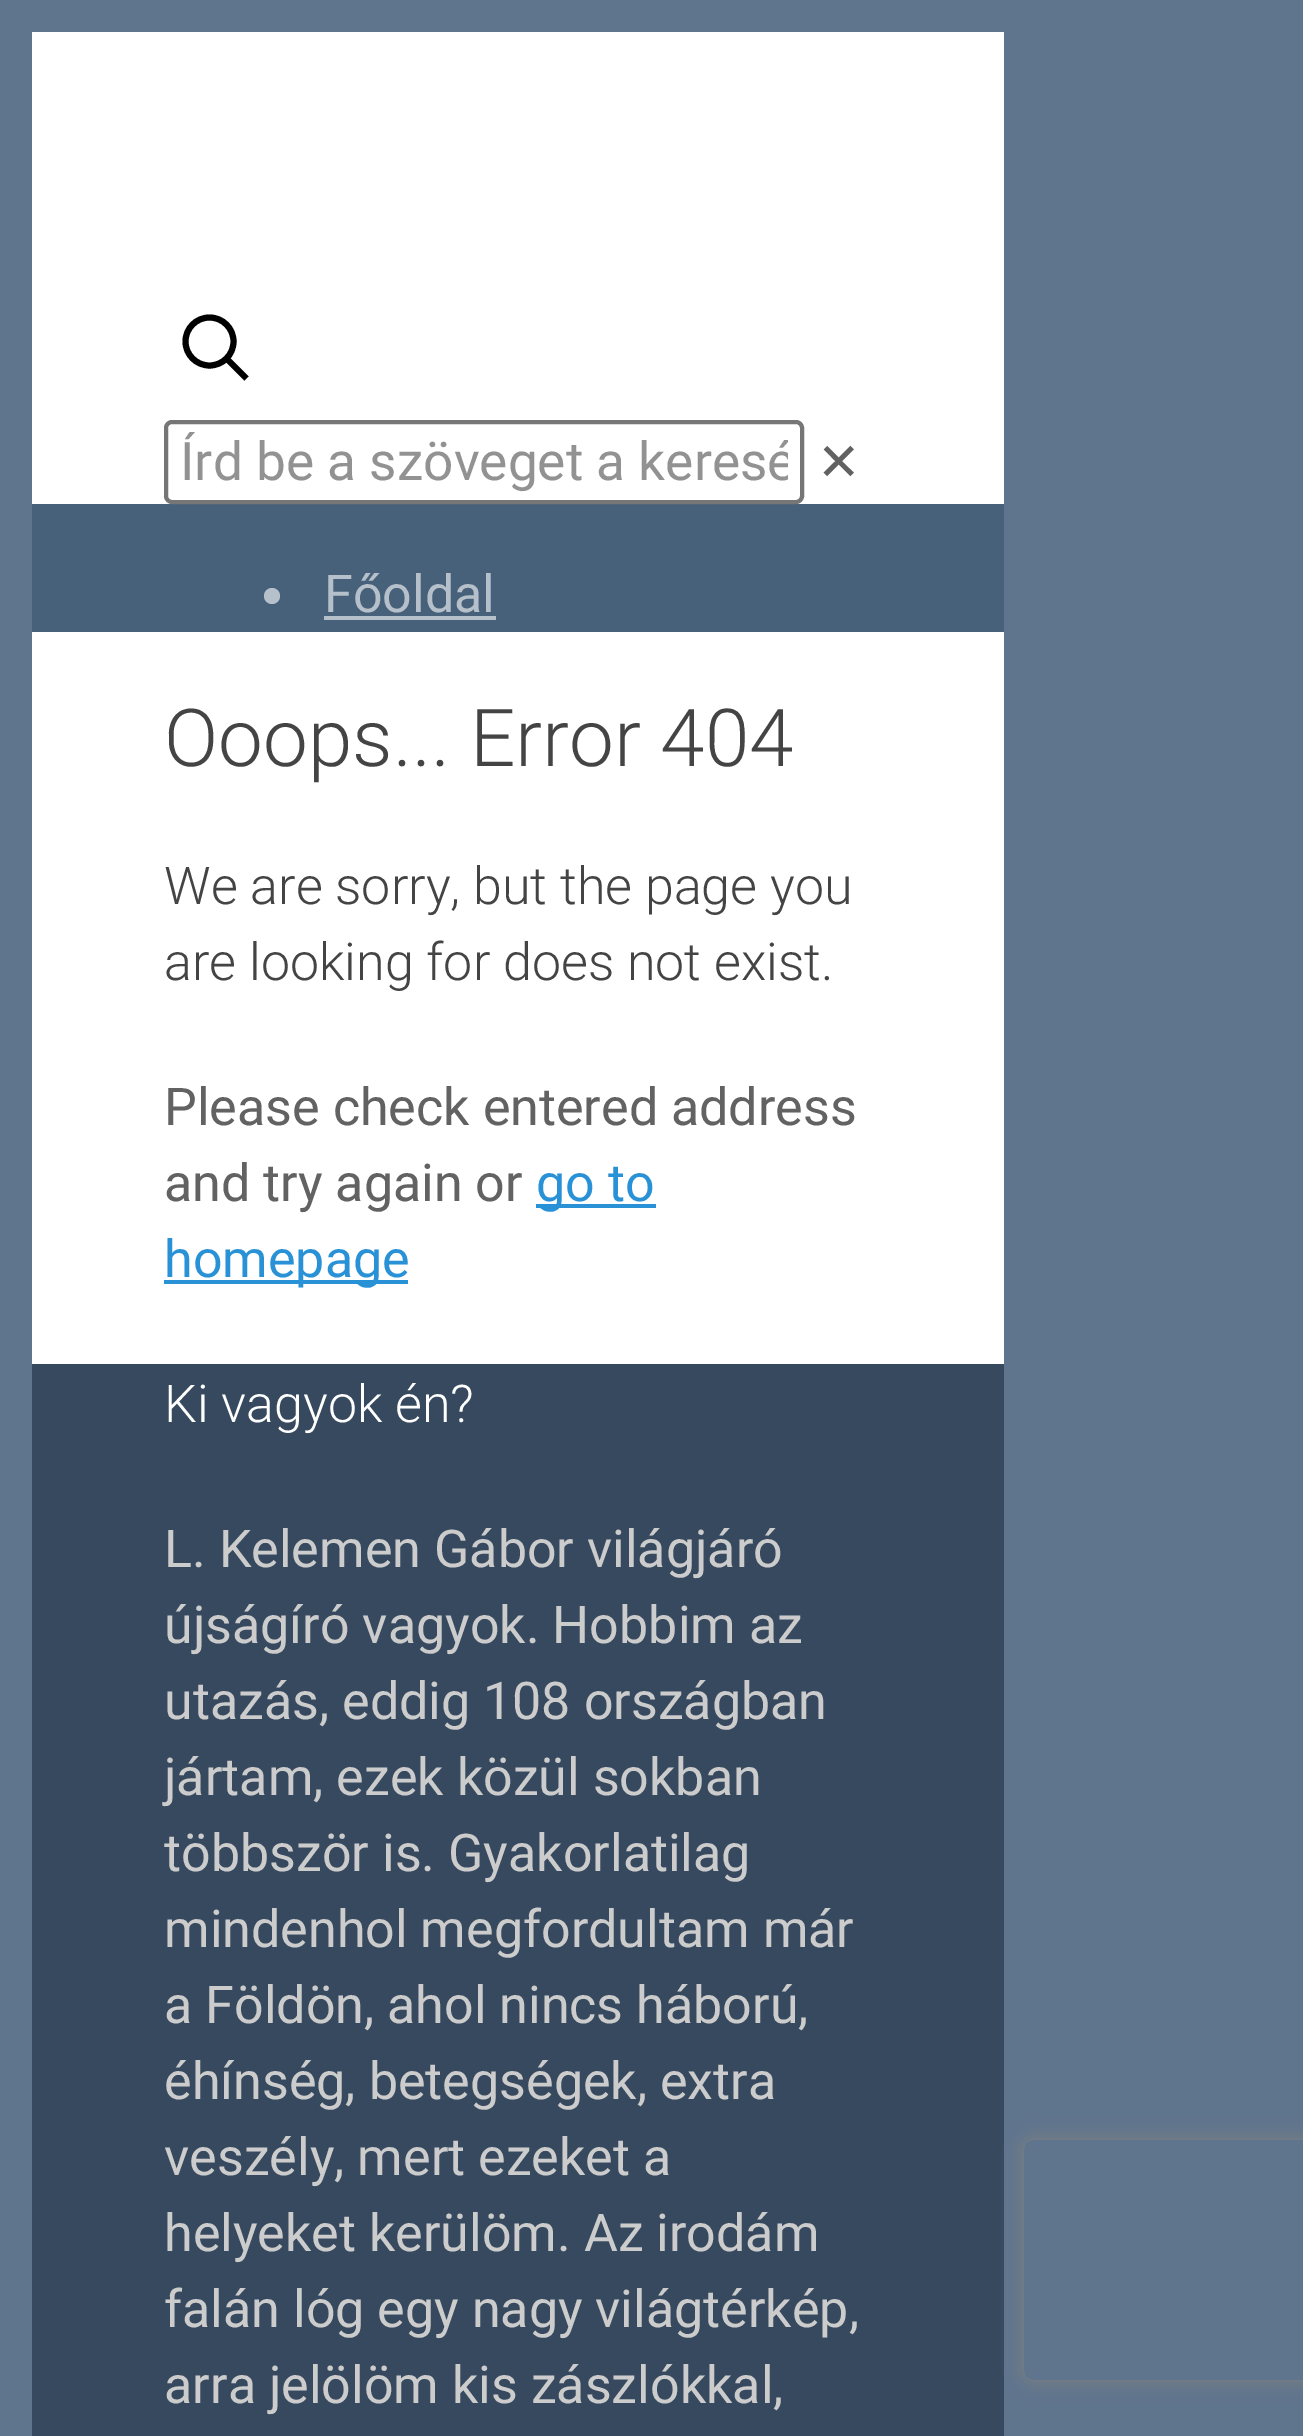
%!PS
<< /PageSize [1303 2436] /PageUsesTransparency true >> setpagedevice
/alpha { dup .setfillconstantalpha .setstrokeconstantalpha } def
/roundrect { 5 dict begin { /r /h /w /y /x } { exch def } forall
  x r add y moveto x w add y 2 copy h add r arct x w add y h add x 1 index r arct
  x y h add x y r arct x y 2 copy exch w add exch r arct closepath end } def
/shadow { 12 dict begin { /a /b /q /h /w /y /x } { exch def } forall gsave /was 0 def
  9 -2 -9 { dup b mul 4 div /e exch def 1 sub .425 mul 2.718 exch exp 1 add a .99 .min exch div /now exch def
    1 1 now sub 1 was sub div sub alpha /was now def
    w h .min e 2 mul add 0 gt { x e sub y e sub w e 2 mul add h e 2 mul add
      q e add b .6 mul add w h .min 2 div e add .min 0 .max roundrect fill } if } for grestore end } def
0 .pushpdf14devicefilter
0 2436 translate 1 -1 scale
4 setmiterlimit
0.373 0.459 0.553 setrgbcolor
0 0 1303 2436 rectfill
1 setgray
32 632 972 732 rectfill
0.278 0.38 0.478 setrgbcolor
32 504 972 128 rectfill
1 setgray
32 32 972 472 rectfill
0 setgray
6 setlinewidth
newpath 209.5 341.5 24 0 360 arc closepath stroke
newpath 226.5 358.5 moveto 246.5 378.5 lineto stroke
0.463 setgray
4 setlinewidth
166 422 636 80 6 roundrect stroke
gsave
180 432 608 60 rectclip
/Roboto-Regular [53.25 0 0 -53.25 0 0] selectfont
0.573 setgray
180 480 moveto (Írd be a szöveget a keresé) show
grestore
/DejaVuSans-Regular [52 0 0 -52 0 0] selectfont
0.384 setgray
817 480 moveto (✕) show
0.71 0.753 0.792 setrgbcolor
newpath 272 596 8 0 360 arc closepath fill
/Roboto-Regular [52 0 0 -52 0 0] selectfont
324 612 moveto (Főoldal) show
324 616 172 4 rectfill
/Roboto-Light [80 0 0 -80 0 0] selectfont
0.267 setgray
164 766 moveto (Ooops... Error 404) show
/Roboto-Light [52 0 0 -52 0 0] selectfont
164 904 moveto (We are sorry, but the page you) show
164 980 moveto (are looking for does not exist.) show
/Roboto-Regular [52 0 0 -52 0 0] selectfont
0.384 setgray
164 1125 moveto (Please check entered address) show
164 1201 moveto (and try again or) show
0.161 0.569 0.839 setrgbcolor
536 1204 120 4 rectfill
536 1201 moveto (go to) show
164 1280 244 4 rectfill
164 1277 moveto (homepage) show
0.212 0.286 0.369 setrgbcolor
32 1364 972 1072 rectfill
/Roboto-Light [52 0 0 -52 0 0] selectfont
1 setgray
164 1422 moveto (Ki vagyok én?) show
/Roboto-Regular [52 0 0 -52 0 0] selectfont
0.8 setgray
164 1567 moveto (L. Kelemen Gábor világjáró) show
164 1643 moveto (újságíró vagyok. Hobbim az) show
164 1719 moveto (utazás, eddig 108 országban) show
164 1795 moveto (jártam, ezek közül sokban) show
164 1871 moveto (többször is. Gyakorlatilag) show
164 1947 moveto (mindenhol megfordultam már) show
164 2023 moveto (a Földön, ahol nincs háború,) show
164 2099 moveto (éhínség, betegségek, extra) show
164 2175 moveto (veszély, mert ezeket a) show
164 2251 moveto (helyeket kerülöm. Az irodám) show
164 2327 moveto (falán lóg egy nagy világtérkép,) show
164 2403 moveto (arra jelölöm kis zászlókkal,) show
gsave
newpath 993 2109 moveto 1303 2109 lineto 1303 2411 lineto 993 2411 lineto closepath 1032 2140 moveto 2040 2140 lineto 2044.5 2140 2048 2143.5 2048 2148 curveto 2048 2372 lineto 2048 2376.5 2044.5 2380 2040 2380 curveto 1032 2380 lineto 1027.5 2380 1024 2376.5 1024 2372 curveto 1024 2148 lineto 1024 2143.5 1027.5 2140 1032 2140 curveto closepath eoclip newpath
0.502 setgray
1024 2140 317 240 8 10 1 shadow
grestore
.poppdf14devicefilter showpage
